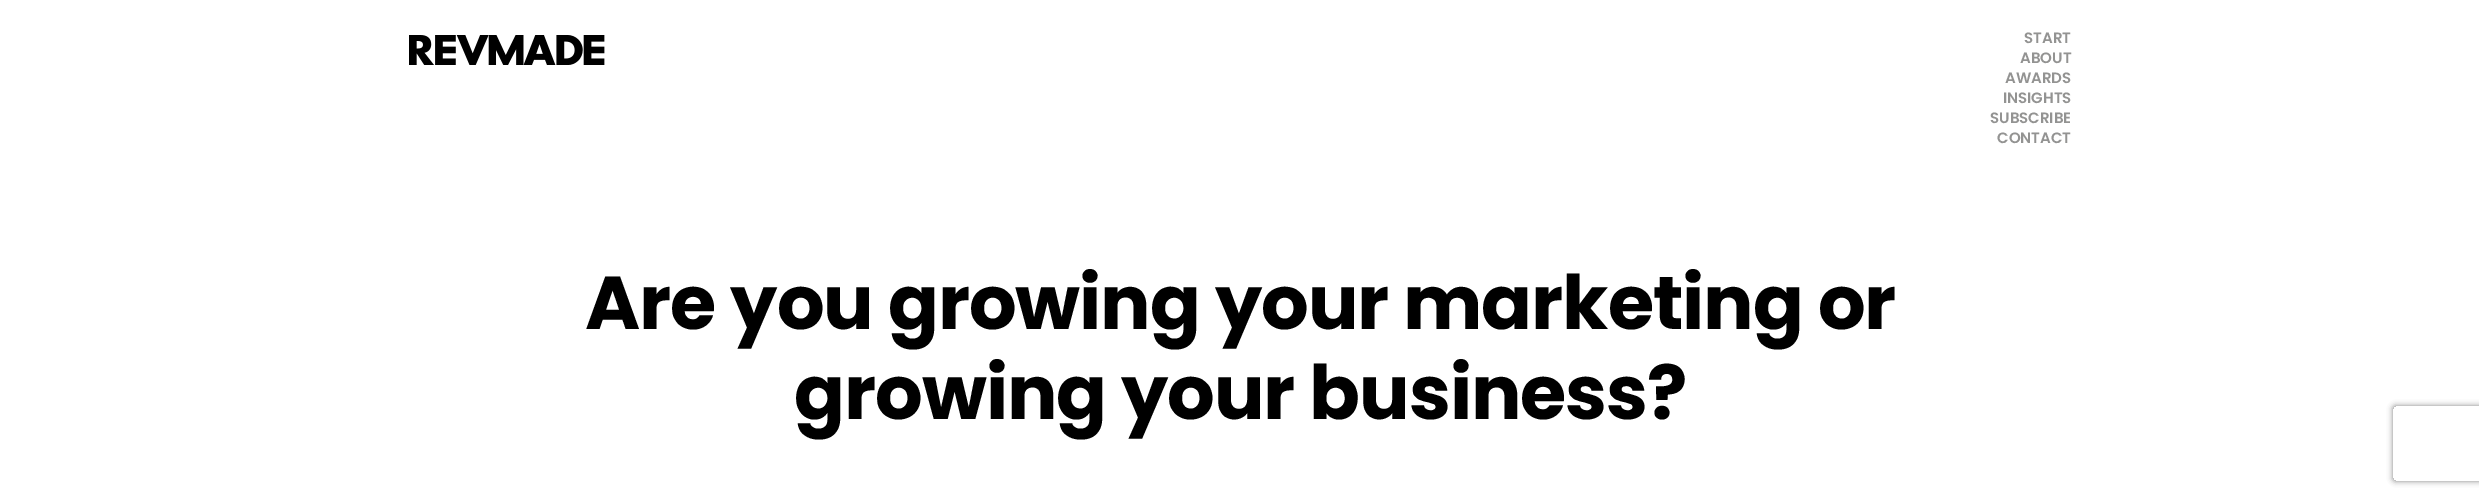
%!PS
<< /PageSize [2479 498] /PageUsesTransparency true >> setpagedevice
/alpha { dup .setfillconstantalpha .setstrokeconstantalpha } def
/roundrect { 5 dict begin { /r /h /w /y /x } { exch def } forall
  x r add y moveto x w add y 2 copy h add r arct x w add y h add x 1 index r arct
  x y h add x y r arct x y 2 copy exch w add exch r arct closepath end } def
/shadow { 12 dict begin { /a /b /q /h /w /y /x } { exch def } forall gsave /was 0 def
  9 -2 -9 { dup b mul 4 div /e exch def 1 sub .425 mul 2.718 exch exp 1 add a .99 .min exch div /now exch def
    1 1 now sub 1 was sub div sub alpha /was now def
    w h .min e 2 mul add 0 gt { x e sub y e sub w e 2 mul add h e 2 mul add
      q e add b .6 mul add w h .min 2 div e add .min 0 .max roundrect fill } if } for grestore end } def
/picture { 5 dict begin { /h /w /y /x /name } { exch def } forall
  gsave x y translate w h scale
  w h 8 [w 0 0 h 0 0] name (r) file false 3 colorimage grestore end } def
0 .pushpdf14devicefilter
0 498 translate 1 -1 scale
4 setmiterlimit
1 setgray
0 0 2479 498 rectfill
(img1.rgb) 409 35 196 30 picture
/Poppins-SemiBold [15 0 0 -15 0 0] selectfont
0.576 0.576 0.573 setrgbcolor
2024 43 moveto (START) show
2020 63 moveto (ABOUT) show
2005 83 moveto (AWARDS) show
2003 103 moveto (INSIGHTS) show
1990 123 moveto (SUBSCRIBE) show
1997 143 moveto (CONTACT) show
/Poppins-Bold [75 0 0 -75 0 0] selectfont
0 setgray
585 329 moveto -1.05 0 (Are you growing your marketing or) ashow
794 419 moveto -1.05 0 (growing your business?) ashow
gsave
newpath 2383 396 moveto 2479 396 lineto 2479 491 lineto 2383 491 lineto closepath 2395.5 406 moveto 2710.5 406 lineto 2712 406 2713 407 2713 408.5 curveto 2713 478.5 lineto 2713 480 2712 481 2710.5 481 curveto 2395.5 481 lineto 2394 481 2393 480 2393 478.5 curveto 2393 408.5 lineto 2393 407 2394 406 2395.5 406 curveto closepath eoclip newpath
0.502 setgray
2393 406 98 75 2.5 3 1 shadow
grestore
.poppdf14devicefilter showpage
